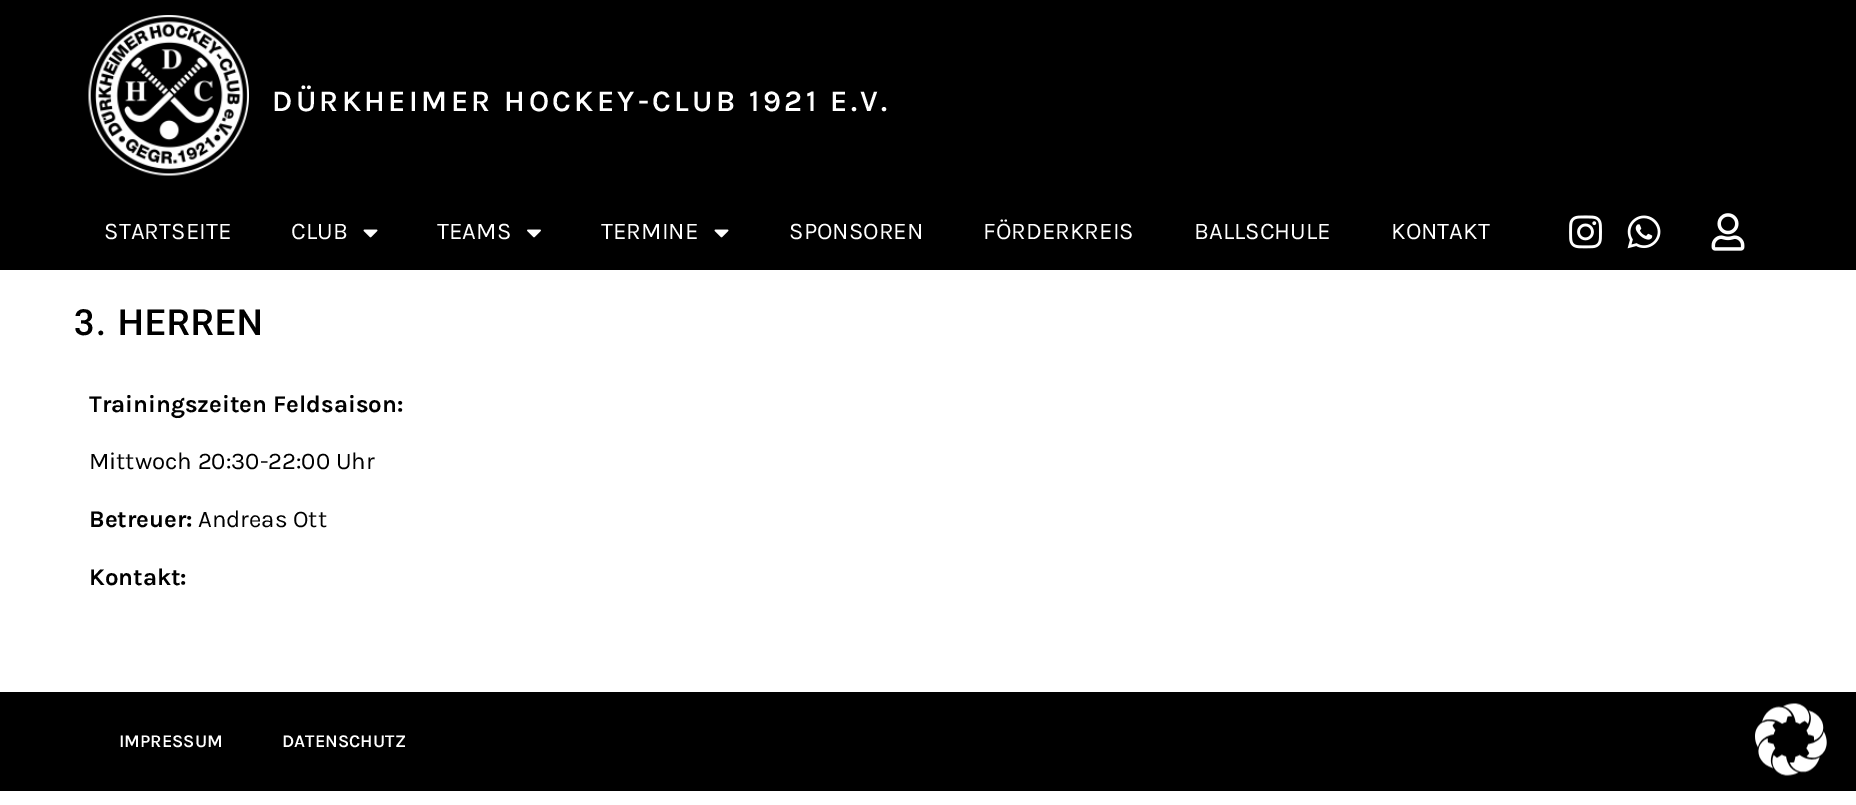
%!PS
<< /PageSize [1856 805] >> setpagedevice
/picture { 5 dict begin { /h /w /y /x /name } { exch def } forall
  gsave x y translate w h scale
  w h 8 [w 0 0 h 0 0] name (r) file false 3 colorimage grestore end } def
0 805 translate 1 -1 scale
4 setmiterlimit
1 setgray
0 0 1856 805 rectfill
0 setgray
0 0 1856 270 rectfill
(img1.rgb) 88 15 161 161 picture
/Karla-SemiBold [30 0 0 -30 0 0] selectfont
1 setgray
272 111 moveto 3.3 0 (DÜRKHEIMER HOCKEY-CLUB 1921 E.V.) ashow
/Karla-Regular [24 0 0 -24 0 0] selectfont
104 239 moveto (STARTSEITE) show
291 239 moveto (CLUB) show
(img2.rgb) 363 229 15 9 picture
437 239 moveto (TEAMS) show
(img3.rgb) 527 229 14 9 picture
601 239 moveto (TERMINE) show
(img2.rgb) 714 229 15 9 picture
789 239 moveto (SPONSOREN) show
983 239 moveto (FÖRDERKREIS) show
1194 239 moveto (BALLSCHULE) show
1391 239 moveto (KONTAKT) show
(img4.rgb) 1569 215 33 34 picture
(img5.rgb) 1627 215 34 34 picture
(img6.rgb) 1711 213 34 38 picture
/Roboto-Medium [36 0 0 -36 0 0] selectfont
0 setgray
74 335 moveto 1.5 0 (3. HERREN) ashow
/Karla-Bold [24 0 0 -24 0 0] selectfont
89 412 moveto (Trainingszeiten Feldsaison:) show
/Karla-Regular [24 0 0 -24 0 0] selectfont
89 469 moveto (Mittwoch 20:30-22:00 Uhr) show
/Karla-Bold [24 0 0 -24 0 0] selectfont
89 527 moveto (Betreuer:) show
/Karla-Regular [24 0 0 -24 0 0] selectfont
198 527 moveto (Andreas Ott) show
/Karla-Bold [24 0 0 -24 0 0] selectfont
89 585 moveto (Kontakt:) show
0 692 1856 99 rectfill
/Karla-SemiBold [18 0 0 -18 0 0] selectfont
1 setgray
119 747 moveto (IMPRESSUM) show
282 747 moveto (DATENSCHUTZ) show
(img7.rgb) 1755 703 72 73 picture
showpage
